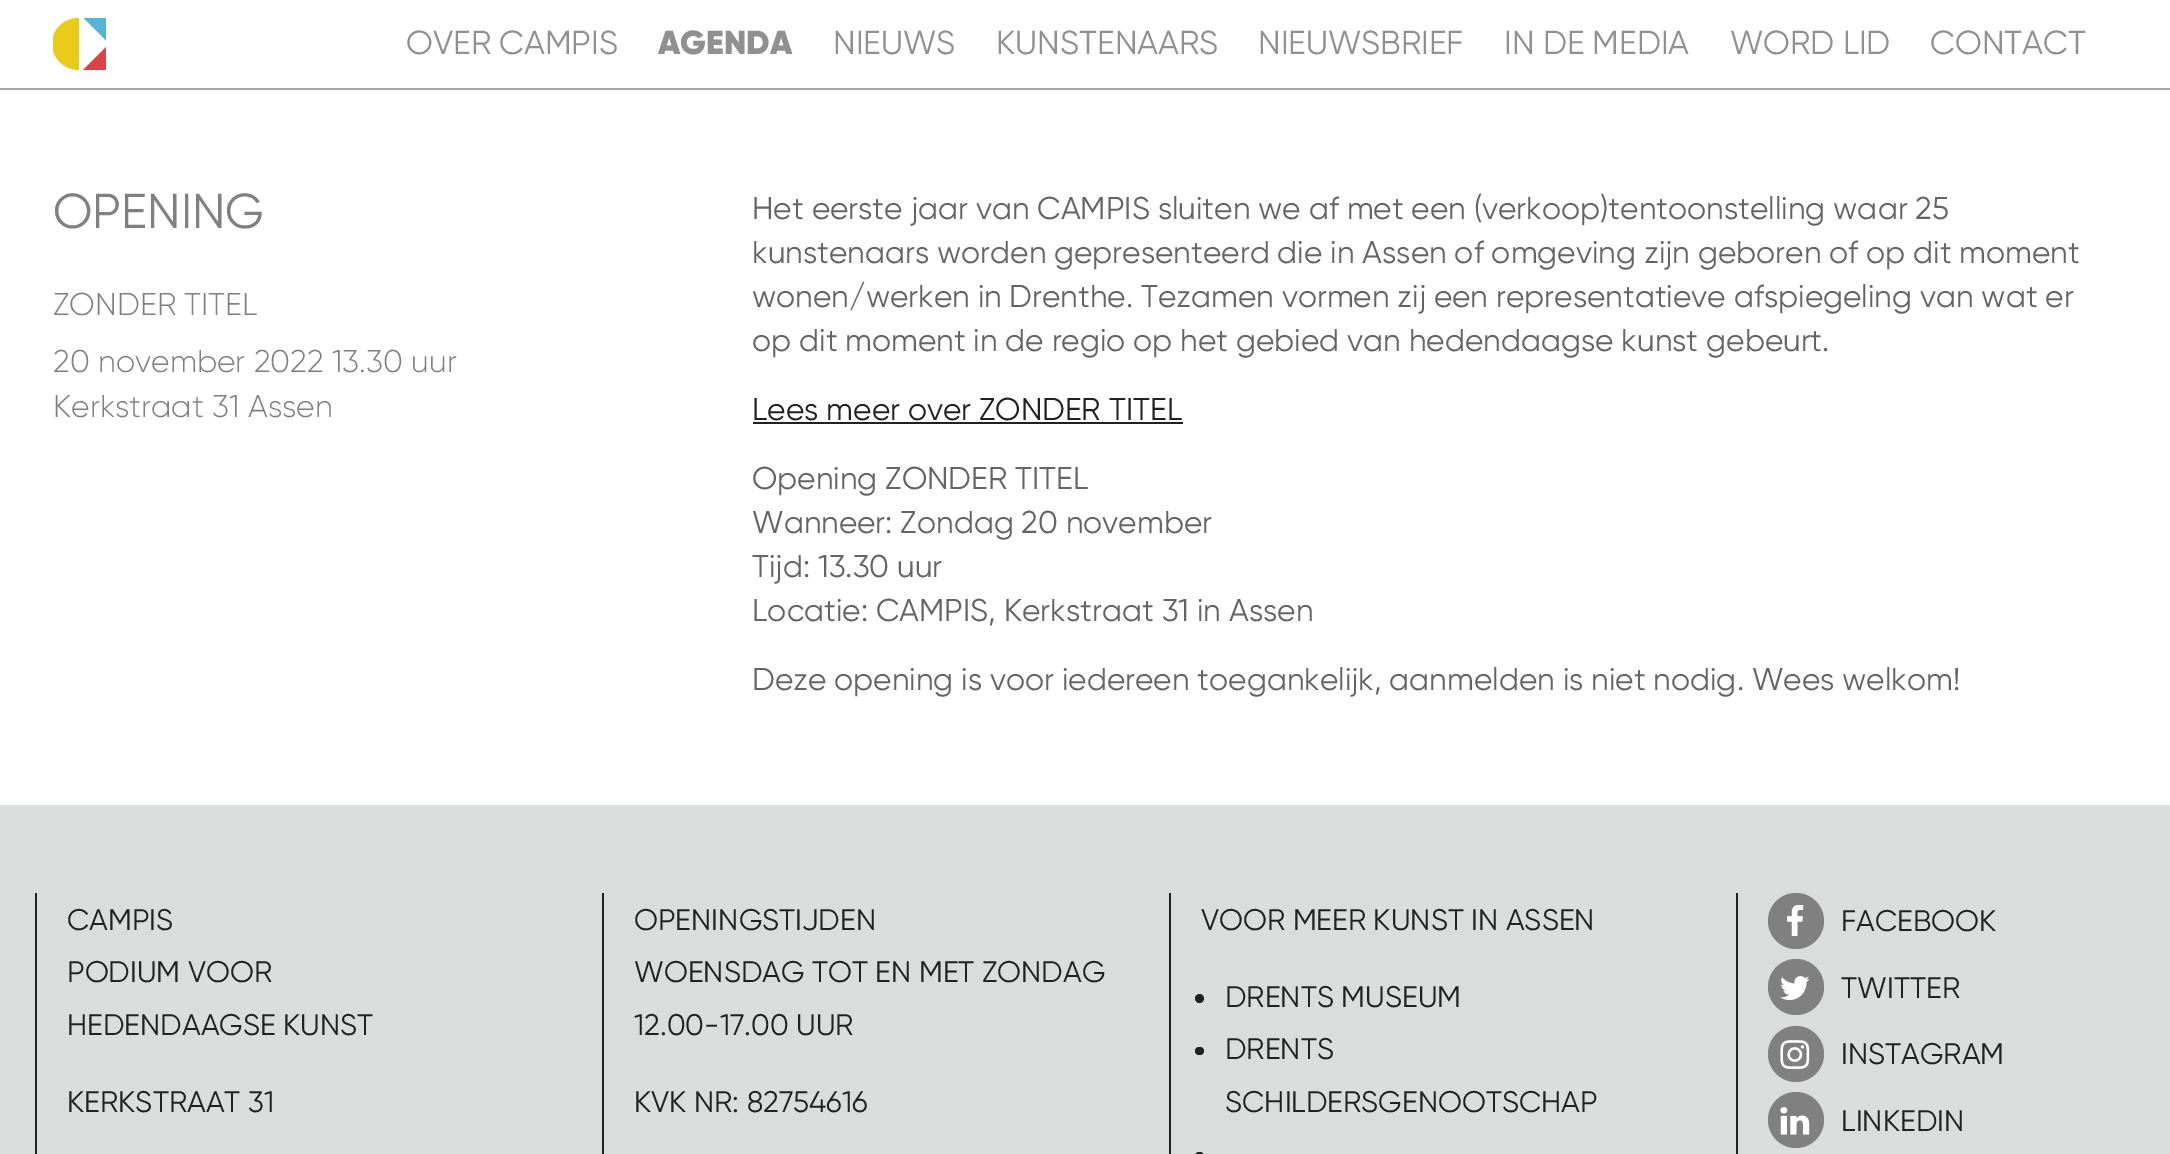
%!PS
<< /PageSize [2170 1154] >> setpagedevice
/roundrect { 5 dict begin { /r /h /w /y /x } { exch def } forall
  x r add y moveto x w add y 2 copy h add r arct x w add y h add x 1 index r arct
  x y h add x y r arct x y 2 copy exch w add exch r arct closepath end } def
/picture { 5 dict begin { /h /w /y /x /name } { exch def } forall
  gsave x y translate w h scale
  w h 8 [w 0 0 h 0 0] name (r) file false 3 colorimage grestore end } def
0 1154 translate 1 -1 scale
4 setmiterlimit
1 setgray
0 0 2170 1154 rectfill
0.651 setgray
0 88 2170 2 rectfill
gsave
53 18 54 52 rectclip
0.918 0.792 0.106 setrgbcolor
newpath 79 18 moveto 64 18 52 29 52 44 curveto 52 58 64 70 79 70 curveto closepath fill
0.341 0.702 0.843 setrgbcolor
newpath 83 17.5 moveto 106 40.5 lineto 106 17.5 lineto closepath fill
grestore
0.851 0.267 0.282 setrgbcolor
newpath 83 70 moveto 106 70 lineto 106 47 lineto closepath fill
/Gilroy-Regular [33.25 0 0 -33.25 0 0] selectfont
0.565 setgray
406 54 moveto (OVER CAMPIS) show
/Gilroy-Black [33.25 0 0 -33.25 0 0] selectfont
658 54 moveto (AGENDA) show
/Gilroy-Regular [33.25 0 0 -33.25 0 0] selectfont
833 54 moveto (NIEUWS) show
996 54 moveto (KUNSTENAARS) show
1258 54 moveto (NIEUWSBRIEF) show
1504 54 moveto (IN DE MEDIA) show
1730 54 moveto (WORD LID) show
1930 54 moveto (CONTACT) show
/Gilroy-Regular [49 0 0 -49 0 0] selectfont
0.502 setgray
53 228 moveto (OPENING) show
/Gilroy-Light [31.5 0 0 -31.5 0 0] selectfont
53 315 moveto (ZONDER TITEL) show
53 372 moveto (20 november 2022 13.30 uur) show
53 417 moveto (Kerkstraat 31 Assen) show
/Gilroy-Regular [31.5 0 0 -31.5 0 0] selectfont
0.392 setgray
752 219 moveto (Het eerste jaar van CAMPIS sluiten we af met een \(verkoop\)tentoonstelling waar 25) show
752 263 moveto (kunstenaars worden gepresenteerd die in Assen of omgeving zijn geboren of op dit moment) show
752 307 moveto (wonen/werken in Drenthe. Tezamen vormen zij een representatieve afspiegeling van wat er) show
752 351 moveto (op dit moment in de regio op het gebied van hedendaagse kunst gebeurt.) show
0.129 setgray
752 420 moveto (Lees meer over ZONDER TITEL) show
753 422 430 2 rectfill
0.392 setgray
752 489 moveto (Opening ZONDER TITEL) show
752 533 moveto (Wanneer: Zondag 20 november) show
752 577 moveto (Tijd: 13.30 uur) show
752 621 moveto (Locatie: CAMPIS, Kerkstraat 31 in Assen) show
752 690 moveto (Deze opening is voor iedereen toegankelijk, aanmelden is niet nodig. Wees welkom!) show
0.859 0.863 0.863 setrgbcolor
0 805 2170 349 rectfill
0.129 setgray
35 893 2 261 rectfill
/Gilroy-Regular [29.75 0 0 -29.75 0 0] selectfont
67 930 moveto (CAMPIS) show
67 982 moveto (PODIUM VOOR) show
67 1035 moveto (HEDENDAAGSE KUNST) show
67 1112 moveto (KERKSTRAAT 31) show
602 893 2 261 rectfill
634 930 moveto (OPENINGSTIJDEN) show
634 982 moveto (WOENSDAG TOT EN MET ZONDAG) show
634 1035 moveto (12.00-17.00 UUR) show
634 1112 moveto (KVK NR: 82754616) show
1169 893 2 261 rectfill
1201 930 moveto (VOOR MEER KUNST IN ASSEN) show
newpath 1199.5 998.5 4.5 0 360 arc closepath fill
1225 1007 moveto (DRENTS MUSEUM) show
1195 1047 9 8 4 roundrect fill
1225 1059 moveto (DRENTS) show
1225 1112 moveto (SCHILDERSGENOOTSCHAP) show
1195 1152 9 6 4 roundrect fill
1736 893 2 261 rectfill
0.502 setgray
newpath 1796 921 28 0 360 arc closepath fill
(img1.rgb) 1787 905 17 31 picture
0.129 setgray
1841 931 moveto (FACEBOOK) show
0.502 setgray
newpath 1796 987 28 0 360 arc closepath fill
(img2.rgb) 1780 976 30 24 picture
0.129 setgray
1841 998 moveto (TWITTER) show
0.502 setgray
newpath 1796 1054 28 0 360 arc closepath fill
(img3.rgb) 1780 1040 30 29 picture
0.129 setgray
1841 1064 moveto (INSTAGRAM) show
0.502 setgray
newpath 1796 1120 28 0 360 arc closepath fill
(img4.rgb) 1780 1107 30 28 picture
0.129 setgray
1841 1131 moveto (LINKEDIN) show
showpage
